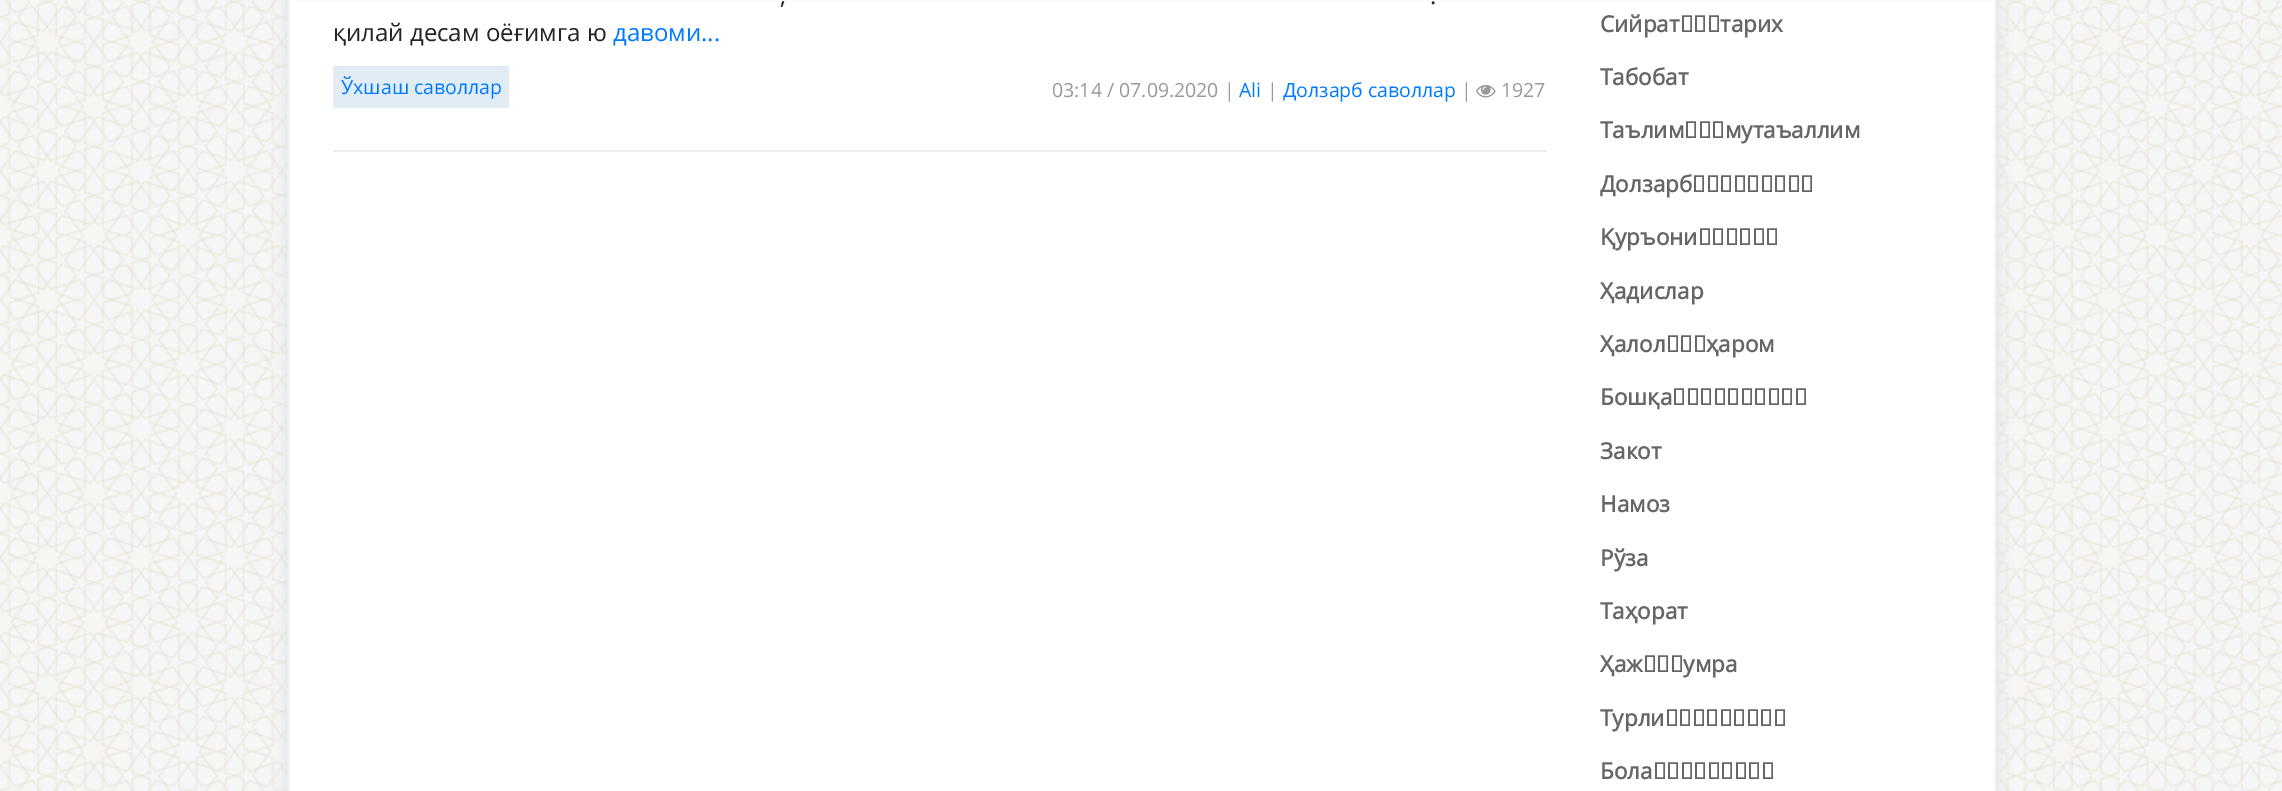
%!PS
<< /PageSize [2282 791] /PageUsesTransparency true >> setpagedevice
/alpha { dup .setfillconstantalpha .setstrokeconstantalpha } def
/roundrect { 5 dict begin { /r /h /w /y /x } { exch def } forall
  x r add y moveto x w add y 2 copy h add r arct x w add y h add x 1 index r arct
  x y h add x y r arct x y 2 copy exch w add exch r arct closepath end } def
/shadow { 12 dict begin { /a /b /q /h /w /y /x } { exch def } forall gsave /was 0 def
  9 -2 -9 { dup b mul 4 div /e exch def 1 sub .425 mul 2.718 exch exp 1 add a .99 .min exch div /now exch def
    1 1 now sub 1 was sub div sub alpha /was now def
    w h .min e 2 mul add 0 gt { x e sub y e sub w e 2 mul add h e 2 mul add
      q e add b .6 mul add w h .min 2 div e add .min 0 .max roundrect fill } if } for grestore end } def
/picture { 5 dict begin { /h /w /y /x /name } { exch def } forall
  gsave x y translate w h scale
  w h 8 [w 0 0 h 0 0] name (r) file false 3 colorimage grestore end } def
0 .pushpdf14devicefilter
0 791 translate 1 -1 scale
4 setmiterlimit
0.949 setgray
0 0 2282 791 rectfill
(img1.rgb) 0 0 2282 791 picture
0.863 0.886 0.89 setrgbcolor
287 -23 1710 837 0 7.5 1 shadow
1 setgray
newpath 288 -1 moveto 1996 -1 lineto 1996 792 lineto 288 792 lineto closepath gsave fill grestore
0.933 setgray
2 setlinewidth
stroke
333 150 1214 2 rectfill
/OpenSans-Regular [24 0 0 -24 0 0] selectfont
0.129 0.145 0.161 setrgbcolor
780 4 moveto (,) show
1430 4 moveto (.) show
333 41 moveto (қилай десам оёғимга ю) show
0 0.482 1 setrgbcolor
613 41 moveto (давоми...) show
0.882 0.925 0.957 setrgbcolor
333 66 176 42 rectfill
/OpenSans-Regular [19.5 0 0 -19.5 0 0] selectfont
0 0.482 1 setrgbcolor
341 94 moveto (Ўхшаш саволлар) show
0.6 setgray
1052 97 moveto (03:14 / 07.09.2020 |) show
0 0.482 1 setrgbcolor
1239 97 moveto (Ali) show
0.6 setgray
1267 97 moveto (|) show
0 0.482 1 setrgbcolor
1283 97 moveto (Долзарб саволлар) show
0.6 setgray
1461 97 moveto (|) show
(img2.rgb) 1476 85 20 13 picture
1501 97 moveto (1927) show
/OpenSans-Bold [22.5 0 0 -22.5 0 0] selectfont
0.4 setgray
1600 32 moveto (Сийрат ва тарих) show
1600 85 moveto (Табобат) show
1600 138 moveto (Таълим ва мутаъаллим) show
1600 192 moveto (Долзарб саволлар) show
1600 245 moveto (Қуръони карим) show
1600 299 moveto (Ҳадислар) show
1600 352 moveto (Ҳалол ва ҳаром) show
1600 405 moveto (Бошқа ибодатлар) show
1600 459 moveto (Закот) show
1600 512 moveto (Намоз) show
1600 566 moveto (Рўза) show
1600 619 moveto (Таҳорат) show
1600 672 moveto (Ҳаж ва умра) show
1600 726 moveto (Турли саволлар) show
1600 779 moveto (Бола тарбияси) show
.poppdf14devicefilter showpage
